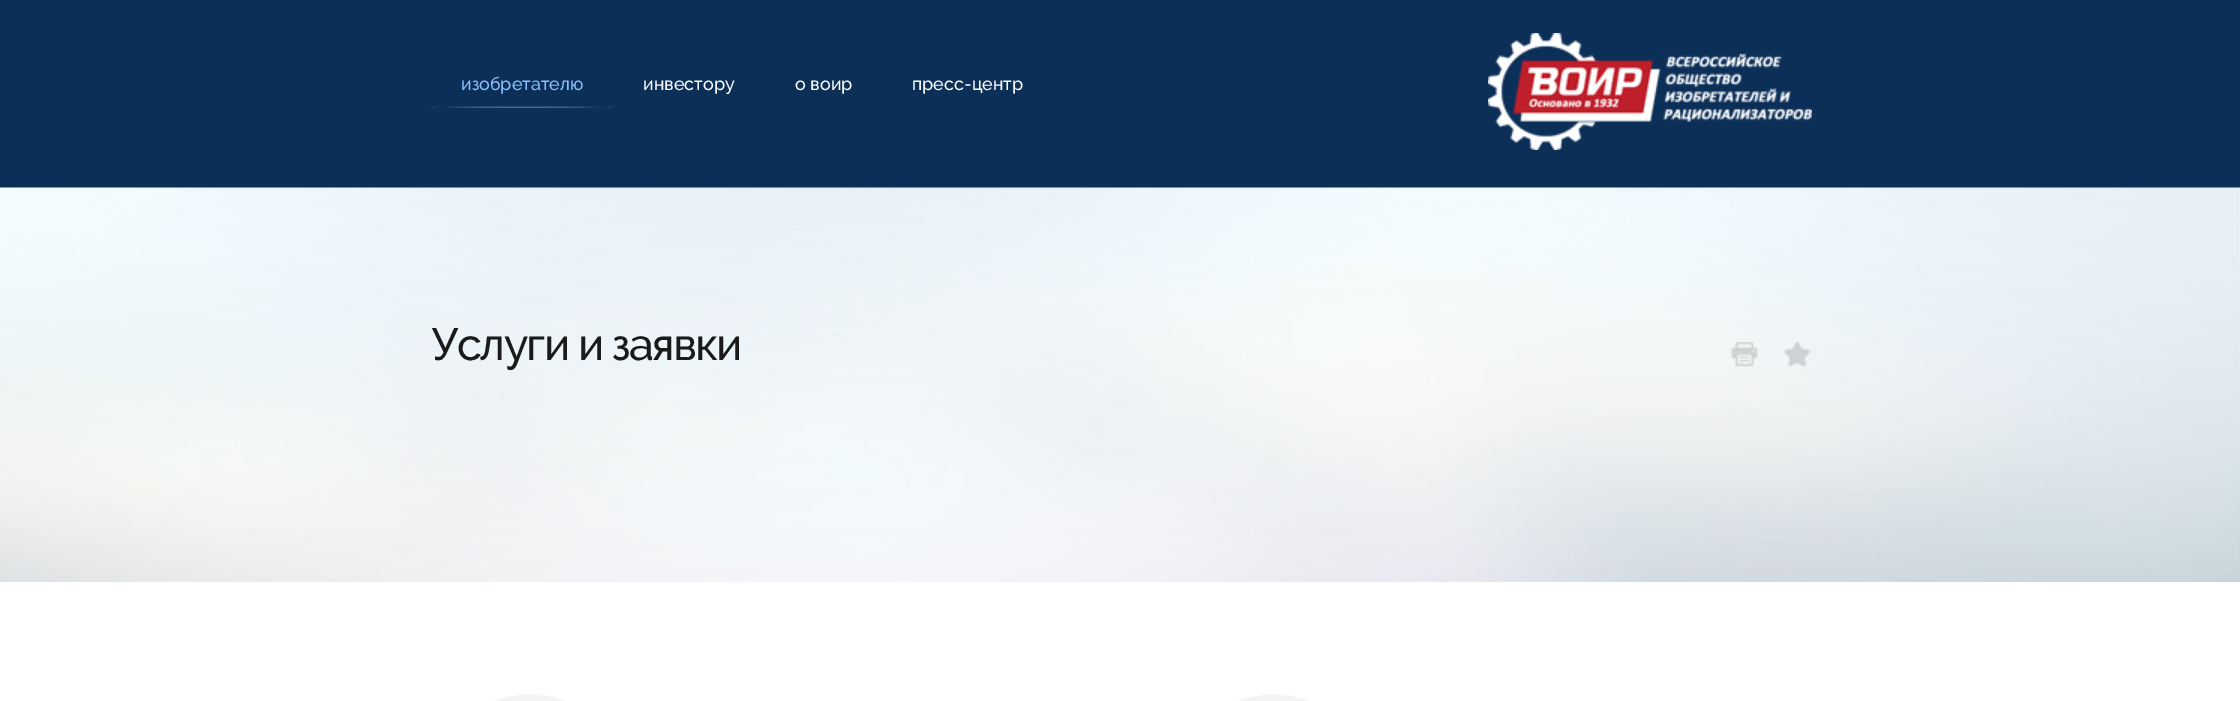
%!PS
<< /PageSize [2240 701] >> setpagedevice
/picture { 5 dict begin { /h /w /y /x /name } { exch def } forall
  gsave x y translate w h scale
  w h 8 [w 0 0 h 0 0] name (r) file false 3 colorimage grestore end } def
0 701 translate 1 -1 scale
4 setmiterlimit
1 setgray
0 0 2240 701 rectfill
0.047 0.184 0.345 setrgbcolor
0 0 2240 188 rectfill
(img1.rgb) 430 106 184 2 picture
/Raleway-Medium [18 0 0 -18 0 0] selectfont
0.537 0.749 1 setrgbcolor
461 90 moveto (изобретателю) show
1 setgray
643 90 moveto (инвестору) show
795 90 moveto (о воир) show
912 90 moveto (пресс-центр) show
(img2.rgb) 1488 33 324 117 picture
(img3.rgb) 0 187 2240 395 picture
/Raleway-Medium [45 0 0 -45 0 0] selectfont
0.102 setgray
431 360 moveto -1.75 0 (Услуги и заявки) ashow
(img4.rgb) 1731 342 27 25 picture
(img5.rgb) 1783 342 28 25 picture
(img6.rgb) 495 694 71 7 picture
(img7.rgb) 1238 694 71 7 picture
showpage
